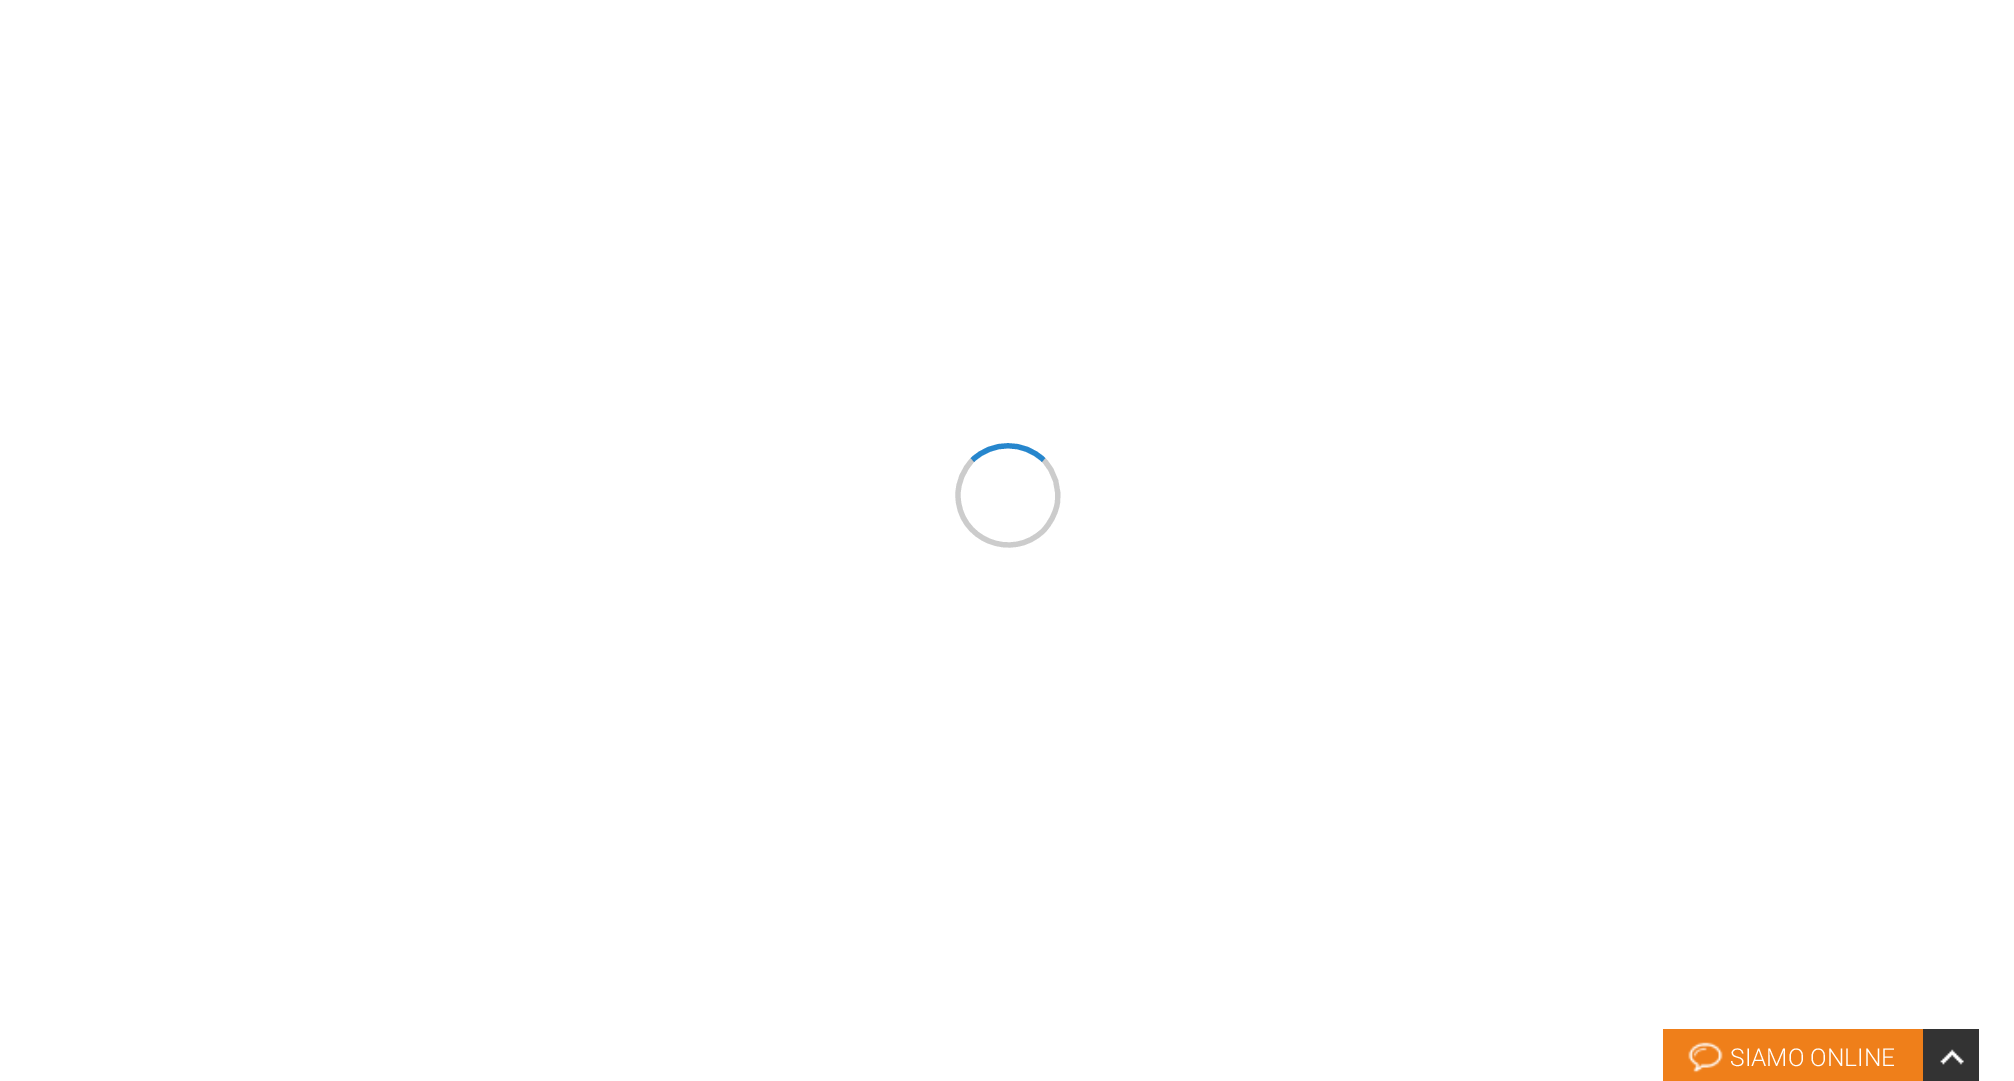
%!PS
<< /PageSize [2014 1081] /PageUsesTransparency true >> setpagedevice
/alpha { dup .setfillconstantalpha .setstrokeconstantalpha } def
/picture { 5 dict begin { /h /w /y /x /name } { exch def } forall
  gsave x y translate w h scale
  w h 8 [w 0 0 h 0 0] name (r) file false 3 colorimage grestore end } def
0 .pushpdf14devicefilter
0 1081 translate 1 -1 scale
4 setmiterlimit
1 setgray
0 0 2014 1081 rectfill
0.149 0.525 0.804 setrgbcolor
5.2 setlinewidth
newpath 972.5 460 moveto 992 441 1024 441 1043.5 460 curveto stroke
0.2 alpha
0 setgray
newpath 1043.5 460 moveto 1055 471.5 1060 489 1057 505 curveto 1055 514.5 1050 523.5 1043.5 530.5 curveto 1012 561.5 958 539.5 958 495 curveto 958 482 963.5 469.5 972.5 460 curveto stroke
1 alpha
0.937 0.498 0.102 setrgbcolor
1663 1029 260 52 rectfill
(img1.rgb) 1688 1042 35 31 picture
/Roboto-Light [24.5 0 0 -24.5 0 0] selectfont
1 setgray
1730 1066 moveto (SIAMO ONLINE) show
0.2 setgray
1923 1029 56 52 rectfill
(img2.rgb) 1940 1049 24 16 picture
.poppdf14devicefilter showpage
